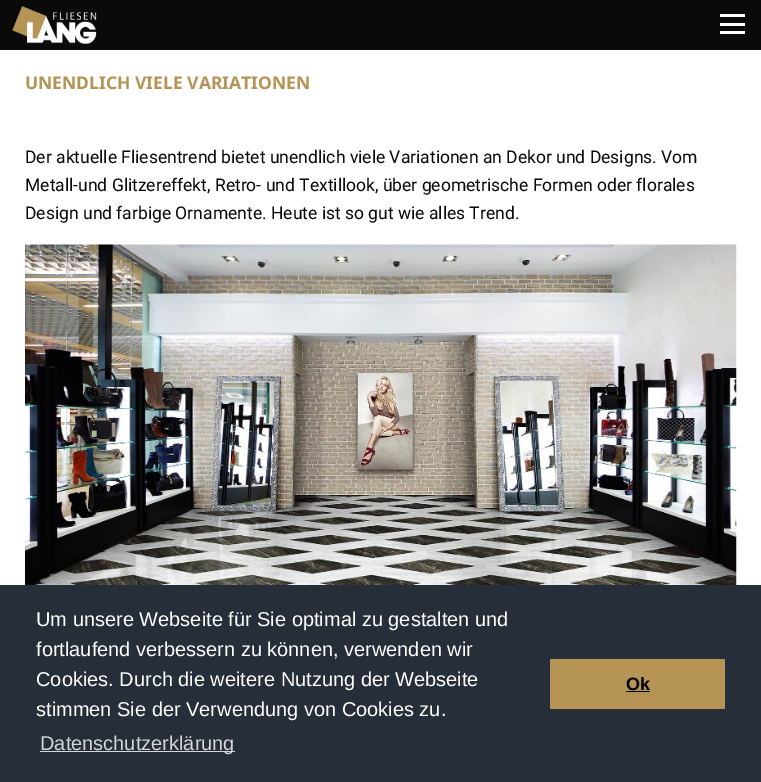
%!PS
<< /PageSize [761 782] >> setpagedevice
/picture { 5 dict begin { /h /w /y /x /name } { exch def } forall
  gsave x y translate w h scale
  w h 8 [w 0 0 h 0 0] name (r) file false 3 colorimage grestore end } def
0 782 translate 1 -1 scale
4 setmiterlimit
1 setgray
0 0 761 782 rectfill
0.039 setgray
0 0 761 50 rectfill
0.996 setgray
720 31 25 3 rectfill
720 23 25 3 rectfill
720 14 25 3 rectfill
(img1.rgb) 12 6 85 38 picture
/NotoSans-Bold [17.5 0 0 -17.5 0 0] selectfont
0.71 0.58 0.337 setrgbcolor
25 89 moveto (UNENDLICH VIELE VARIATIONEN) show
/Roboto-Regular [17.5 0 0 -17.5 0 0] selectfont
0.039 setgray
25 163 moveto (Der aktuelle Fliesentrend bietet unendlich viele Variationen an Dekor und Designs. Vom) show
25 191 moveto (Metall-und Glitzereffekt, Retro- und Textillook, über geometrische Formen oder florales) show
25 219 moveto (Design und farbige Ornamente. Heute ist so gut wie alles Trend.) show
(img2.rgb) 25 244 712 341 picture
0.145 0.18 0.224 setrgbcolor
0 585 761 197 rectfill
/LiberationSans-Regular [20 0 0 -20 0 0] selectfont
1 setgray
36 626 moveto (Um unsere Webseite für Sie optimal zu gestalten und) show
36 656 moveto (fortlaufend verbessern zu können, verwenden wir) show
36 686 moveto (Cookies. Durch die weitere Nutzung der Webseite) show
36 716 moveto (stimmen Sie der Verwendung von Cookies zu.) show
0.827 0.835 0.843 setrgbcolor
40 751 195 1 rectfill
40 750 moveto (Datenschutzerklärung) show
0.71 0.58 0.337 setrgbcolor
550 659 175 50 rectfill
/LiberationSans-Bold [18 0 0 -18 0 0] selectfont
0 setgray
626 690 moveto (Ok) show
626 691 24 1 rectfill
showpage
